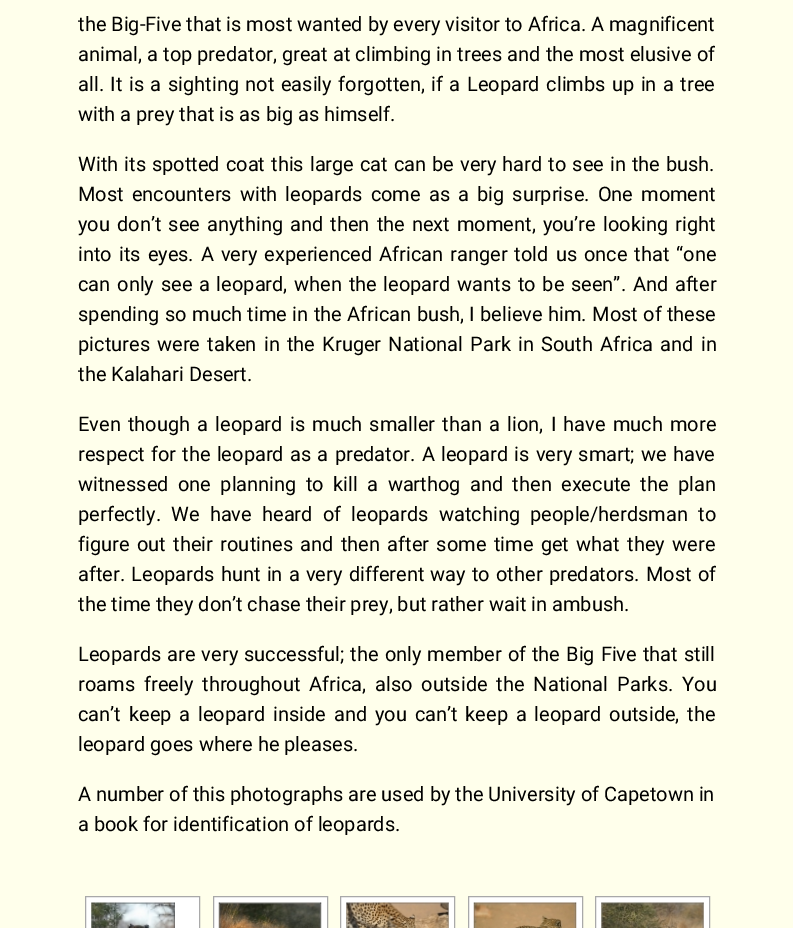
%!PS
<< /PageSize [793 928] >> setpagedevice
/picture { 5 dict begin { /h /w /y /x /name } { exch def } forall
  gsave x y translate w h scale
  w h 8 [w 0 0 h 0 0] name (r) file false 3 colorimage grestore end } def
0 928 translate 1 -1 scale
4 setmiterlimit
1 1 0.922 setrgbcolor
0 0 793 928 rectfill
/Roboto-Regular [20 0 0 -20 0 0] selectfont
0 setgray
78 31 moveto (the Big-Five that is most wanted by every visitor to Africa. A magnificent) show
78 61 moveto 0.1 0 32 (animal, a top predator, great at climbing in trees and the most elusive of) widthshow
78 91 moveto 1.5 0 32 (all. It is a sighting not easily forgotten, if a Leopard climbs up in a tree) widthshow
78 121 moveto (with a prey that is as big as himself.) show
78 171 moveto 1 0 32 (With its spotted coat this large cat can be very hard to see in the bush.) widthshow
78 201 moveto 3.1 0 32 (Most encounters with leopards come as a big surprise. One moment) widthshow
78 231 moveto 2.1 0 32 (you don’t see anything and then the next moment, you’re looking right) widthshow
78 261 moveto 2 0 32 (into its eyes. A very experienced African ranger told us once that “one) widthshow
78 291 moveto 1.75 0 32 (can only see a leopard, when the leopard wants to be seen”. And after) widthshow
78 321 moveto 0.4 0 32 (spending so much time in the African bush, I believe him. Most of these) widthshow
78 351 moveto 2.25 0 32 (pictures were taken in the Kruger National Park in South Africa and in) widthshow
78 381 moveto (the Kalahari Desert.) show
78 431 moveto 2.25 0 32 (Even though a leopard is much smaller than a lion, I have much more) widthshow
78 461 moveto 1.3 0 32 (respect for the leopard as a predator. A leopard is very smart; we have) widthshow
78 491 moveto 4.4 0 32 (witnessed one planning to kill a warthog and then execute the plan) widthshow
78 521 moveto 5.25 0 32 (perfectly. We have heard of leopards watching people/herdsman to) widthshow
78 551 moveto 2.4 0 32 (figure out their routines and then after some time get what they were) widthshow
78 581 moveto 1.25 0 32 (after. Leopards hunt in a very different way to other predators. Most of) widthshow
78 611 moveto (the time they don’t chase their prey, but rather wait in ambush.) show
78 661 moveto 1 0 32 (Leopards are very successful; the only member of the Big Five that still) widthshow
78 691 moveto 4 0 32 (roams freely throughout Africa, also outside the National Parks. You) widthshow
78 721 moveto 2.9 0 32 (can’t keep a leopard inside and you can’t keep a leopard outside, the) widthshow
78 751 moveto (leopard goes where he pleases.) show
78 801 moveto (A number of this photographs are used by the University of Capetown in) show
78 831 moveto (a book for identification of leopards.) show
1 setgray
newpath 85.5 896.5 moveto 199.5 896.5 lineto 199.5 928.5 lineto 85.5 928.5 lineto closepath gsave fill grestore
0.663 setgray
stroke
(img1.rgb) 91 902 84 26 picture
1 setgray
newpath 213.5 896.5 moveto 327.5 896.5 lineto 327.5 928.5 lineto 213.5 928.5 lineto closepath gsave fill grestore
0.663 setgray
stroke
(img2.rgb) 218 902 104 26 picture
1 setgray
newpath 340.5 896.5 moveto 454.5 896.5 lineto 454.5 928.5 lineto 340.5 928.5 lineto closepath gsave fill grestore
0.663 setgray
stroke
(img3.rgb) 346 902 103 26 picture
1 setgray
newpath 468.5 896.5 moveto 582.5 896.5 lineto 582.5 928.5 lineto 468.5 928.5 lineto closepath gsave fill grestore
0.663 setgray
stroke
(img4.rgb) 473 902 104 26 picture
1 setgray
newpath 595.5 896.5 moveto 709.5 896.5 lineto 709.5 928.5 lineto 595.5 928.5 lineto closepath gsave fill grestore
0.663 setgray
stroke
(img5.rgb) 601 902 103 26 picture
showpage
